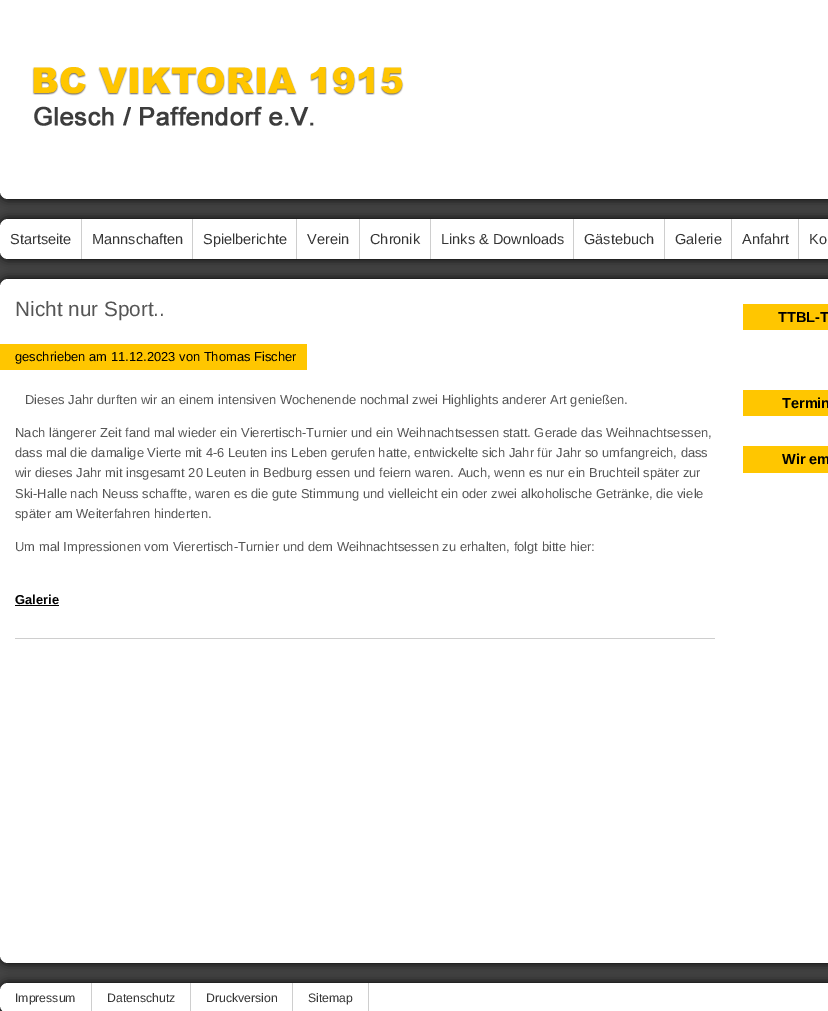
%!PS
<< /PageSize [828 1011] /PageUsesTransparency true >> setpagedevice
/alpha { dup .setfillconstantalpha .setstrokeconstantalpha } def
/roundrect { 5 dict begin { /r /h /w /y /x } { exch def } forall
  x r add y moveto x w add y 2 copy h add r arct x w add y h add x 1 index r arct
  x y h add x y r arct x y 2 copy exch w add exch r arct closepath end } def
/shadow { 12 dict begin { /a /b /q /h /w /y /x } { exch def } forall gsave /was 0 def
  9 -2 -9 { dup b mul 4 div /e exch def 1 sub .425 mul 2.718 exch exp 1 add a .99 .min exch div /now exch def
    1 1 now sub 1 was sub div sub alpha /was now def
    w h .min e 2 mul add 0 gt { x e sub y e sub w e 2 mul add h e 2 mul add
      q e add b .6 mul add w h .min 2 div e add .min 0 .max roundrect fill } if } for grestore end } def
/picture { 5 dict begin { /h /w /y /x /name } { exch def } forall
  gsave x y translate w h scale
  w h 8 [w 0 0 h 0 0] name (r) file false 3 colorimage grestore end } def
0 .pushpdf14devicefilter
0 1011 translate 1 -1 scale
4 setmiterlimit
0.267 setgray
0 0 828 1011 rectfill
0 setgray
0 -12 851 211 8 5 1 shadow
1 setgray
0 -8 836 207 8 roundrect fill
(img1.rgb) 32 67 372 59 picture
0 setgray
0 219 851 40 8 5 1 shadow
1 setgray
0 219 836 40 8 roundrect fill
0.808 setgray
81 219 1 40 rectfill
/LiberationSans-Regular [14.5 0 0 -14.5 0 0] selectfont
0.208 setgray
10 244 moveto (Startseite) show
0.808 setgray
192 219 1 40 rectfill
0.208 setgray
92 244 moveto (Mannschaften) show
0.808 setgray
296 219 1 40 rectfill
0.208 setgray
203 244 moveto (Spielberichte) show
0.808 setgray
359 219 1 40 rectfill
0.208 setgray
307 244 moveto (Verein) show
0.808 setgray
430 219 1 40 rectfill
0.208 setgray
370 244 moveto (Chronik) show
0.808 setgray
573 219 1 40 rectfill
0.208 setgray
441 244 moveto (Links & Downloads) show
0.808 setgray
664 219 1 40 rectfill
0.208 setgray
584 244 moveto (Gästebuch) show
0.808 setgray
731 219 1 40 rectfill
0.208 setgray
675 244 moveto (Galerie) show
0.808 setgray
798 219 1 40 rectfill
0.208 setgray
742 244 moveto (Anfahrt) show
809 244 moveto (Ko) show
0 setgray
0 279 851 684 8 5 1 shadow
1 setgray
0 279 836 684 8 roundrect fill
/LiberationSans-Regular [20.75 0 0 -20.75 0 0] selectfont
0.333 setgray
15 316 moveto (Nicht nur Sport..) show
1 0.776 0 setrgbcolor
0 344 307 26 rectfill
/LiberationSans-Regular [12.95 0 0 -12.95 0 0] selectfont
0 setgray
15 361 moveto (geschrieben am 11.12.2023 von Thomas Fischer) show
0.333 setgray
25 404 moveto (Dieses Jahr durften wir an einem intensiven Wochenende nochmal zwei Highlights anderer Art genießen.) show
15 437 moveto (Nach längerer Zeit fand mal wieder ein Vierertisch-Turnier und ein Weihnachtsessen statt. Gerade das Weihnachtsessen,) show
15 457 moveto (dass mal die damalige Vierte mit 4-6 Leuten ins Leben gerufen hatte, entwickelte sich Jahr für Jahr so umfangreich, dass) show
15 477 moveto (wir dieses Jahr mit insgesamt 20 Leuten in Bedburg essen und feiern waren. Auch, wenn es nur ein Bruchteil später zur) show
15 498 moveto (Ski-Halle nach Neuss schaffte, waren es die gute Stimmung und vielleicht ein oder zwei alkoholische Getränke, die viele) show
15 518 moveto (später am Weiterfahren hinderten.) show
15 551 moveto (Um mal Impressionen vom Vierertisch-Turnier und dem Weihnachtsessen zu erhalten, folgt bitte hier:) show
0.808 setgray
15 638 700 1 rectfill
/LiberationSans-Bold [12.95 0 0 -12.95 0 0] selectfont
0 setgray
15 604 moveto (Galerie) show
15 605 44 1 rectfill
1 0.776 0 setrgbcolor
743 304 85 26 rectfill
/LiberationSans-Bold [14.5 0 0 -14.5 0 0] selectfont
0 setgray
778 322 moveto (TTBL-T) show
1 0.776 0 setrgbcolor
743 390 85 26 rectfill
0 setgray
782 408 moveto (Termin) show
1 0.776 0 setrgbcolor
743 446 85 27 rectfill
0 setgray
782 464 moveto (Wir em) show
0 983 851 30 8 5 1 shadow
1 setgray
0 983 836 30 8 roundrect fill
0.808 setgray
91 983 1 28 rectfill
/LiberationSans-Regular [12.25 0 0 -12.25 0 0] selectfont
0.208 setgray
15 1002 moveto (Impressum) show
0.808 setgray
190 983 1 28 rectfill
0.208 setgray
107 1002 moveto (Datenschutz) show
0.808 setgray
292 983 1 28 rectfill
0.208 setgray
206 1002 moveto (Druckversion) show
0.808 setgray
368 983 1 28 rectfill
0.208 setgray
308 1002 moveto (Sitemap) show
.poppdf14devicefilter showpage
